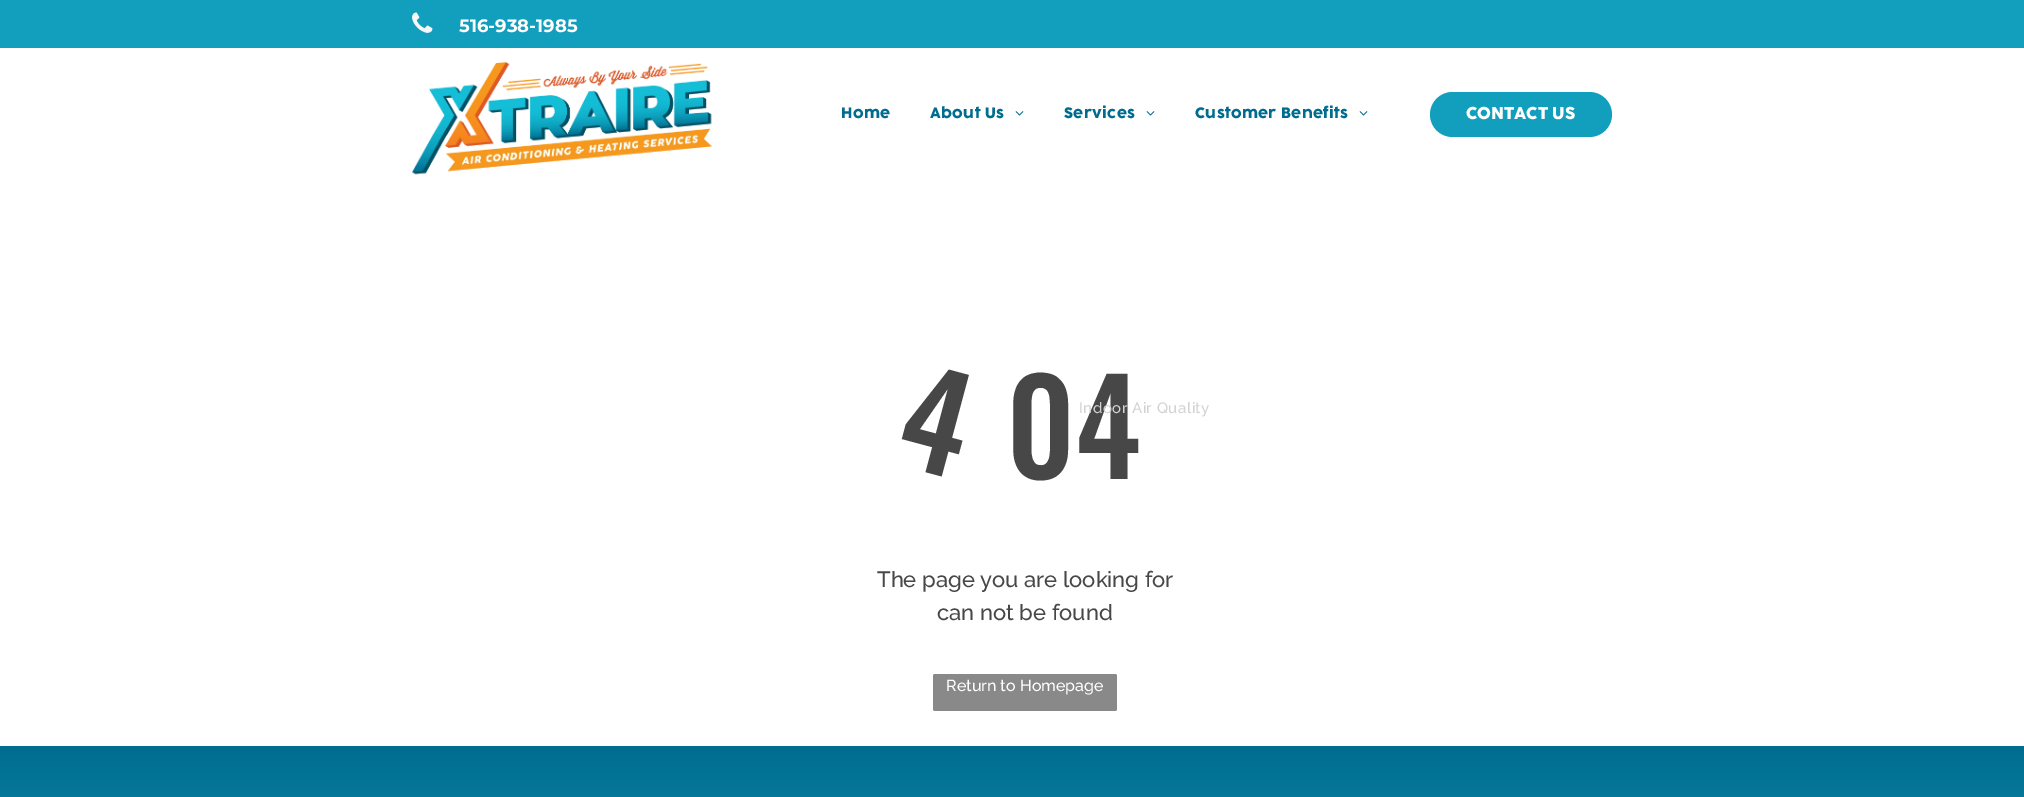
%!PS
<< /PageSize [2024 797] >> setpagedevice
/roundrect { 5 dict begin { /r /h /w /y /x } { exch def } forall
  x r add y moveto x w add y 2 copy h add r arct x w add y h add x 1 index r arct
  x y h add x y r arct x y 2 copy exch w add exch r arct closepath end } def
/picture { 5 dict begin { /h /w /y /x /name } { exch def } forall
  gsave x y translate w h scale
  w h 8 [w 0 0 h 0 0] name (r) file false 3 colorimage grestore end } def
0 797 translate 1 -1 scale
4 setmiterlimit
1 setgray
0 0 2024 797 rectfill
0.071 0.624 0.741 setrgbcolor
0 0 2024 48 rectfill
(img1.rgb) 412 12 21 21 picture
/Montserrat-Bold [18 0 0 -18 0 0] selectfont
1 setgray
459 32 moveto (516-938-1985) show
(img2.rgb) 412 62 300 113 picture
/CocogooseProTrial-Regular [14 0 0 -14 0 0] selectfont
0 0.427 0.565 setrgbcolor
841 118 moveto 0.4 0 (Home) ashow
930 118 moveto 0.4 0 (About Us) ashow
(img3.rgb) 1015 111 9 5 picture
1064 118 moveto 0.4 0 (Services) ashow
(img3.rgb) 1146 111 9 5 picture
/Oswald-Medium [130 0 0 -130 0 0] selectfont
0.278 setgray
1006 479 moveto (04) show
/Raleway-Medium [15 0 0 -15 0 0] selectfont
0.824 setgray
1079 413 moveto 0.5 0 (Indoor Air Quality) ashow
/CocogooseProTrial-Regular [14 0 0 -14 0 0] selectfont
0 0.427 0.565 setrgbcolor
1195 118 moveto 0.4 0 (Customer Benefits) ashow
(img3.rgb) 1359 111 9 5 picture
0.071 0.624 0.741 setrgbcolor
1430 92 182 45 22.5 roundrect fill
/CocogooseProTrial-Regular [16 0 0 -16 0 0] selectfont
1 setgray
1466 119 moveto (CONTACT US) show
/Oswald-Medium [130 0 0 -130 0 0] selectfont
0.278 setgray
gsave 891 463 translate 15 rotate 0 0 moveto (4) show grestore
/Raleway-Medium [22 0 0 -22 0 0] selectfont
877 587 moveto (The page you are looking for) show
937 620 moveto (can not be found) show
0.537 setgray
933 674 184 37 2 roundrect fill
/Raleway-Medium [16 0 0 -16 0 0] selectfont
1 setgray
946 691 moveto (Return to Homepage) show
gsave newpath 0 746 moveto 2024 746 lineto 2024 797 lineto 0 797 lineto closepath clip newpath
<< /ShadingType 2 /ColorSpace /DeviceRGB /Coords [1012 746 1012 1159] /Extend [true true] /Function << /FunctionType 2 /Domain [0 1] /C0 [0 0.427 0.565] /C1 [0.157 0.753 0.847] /N 1 >> >> shfill grestore
showpage
